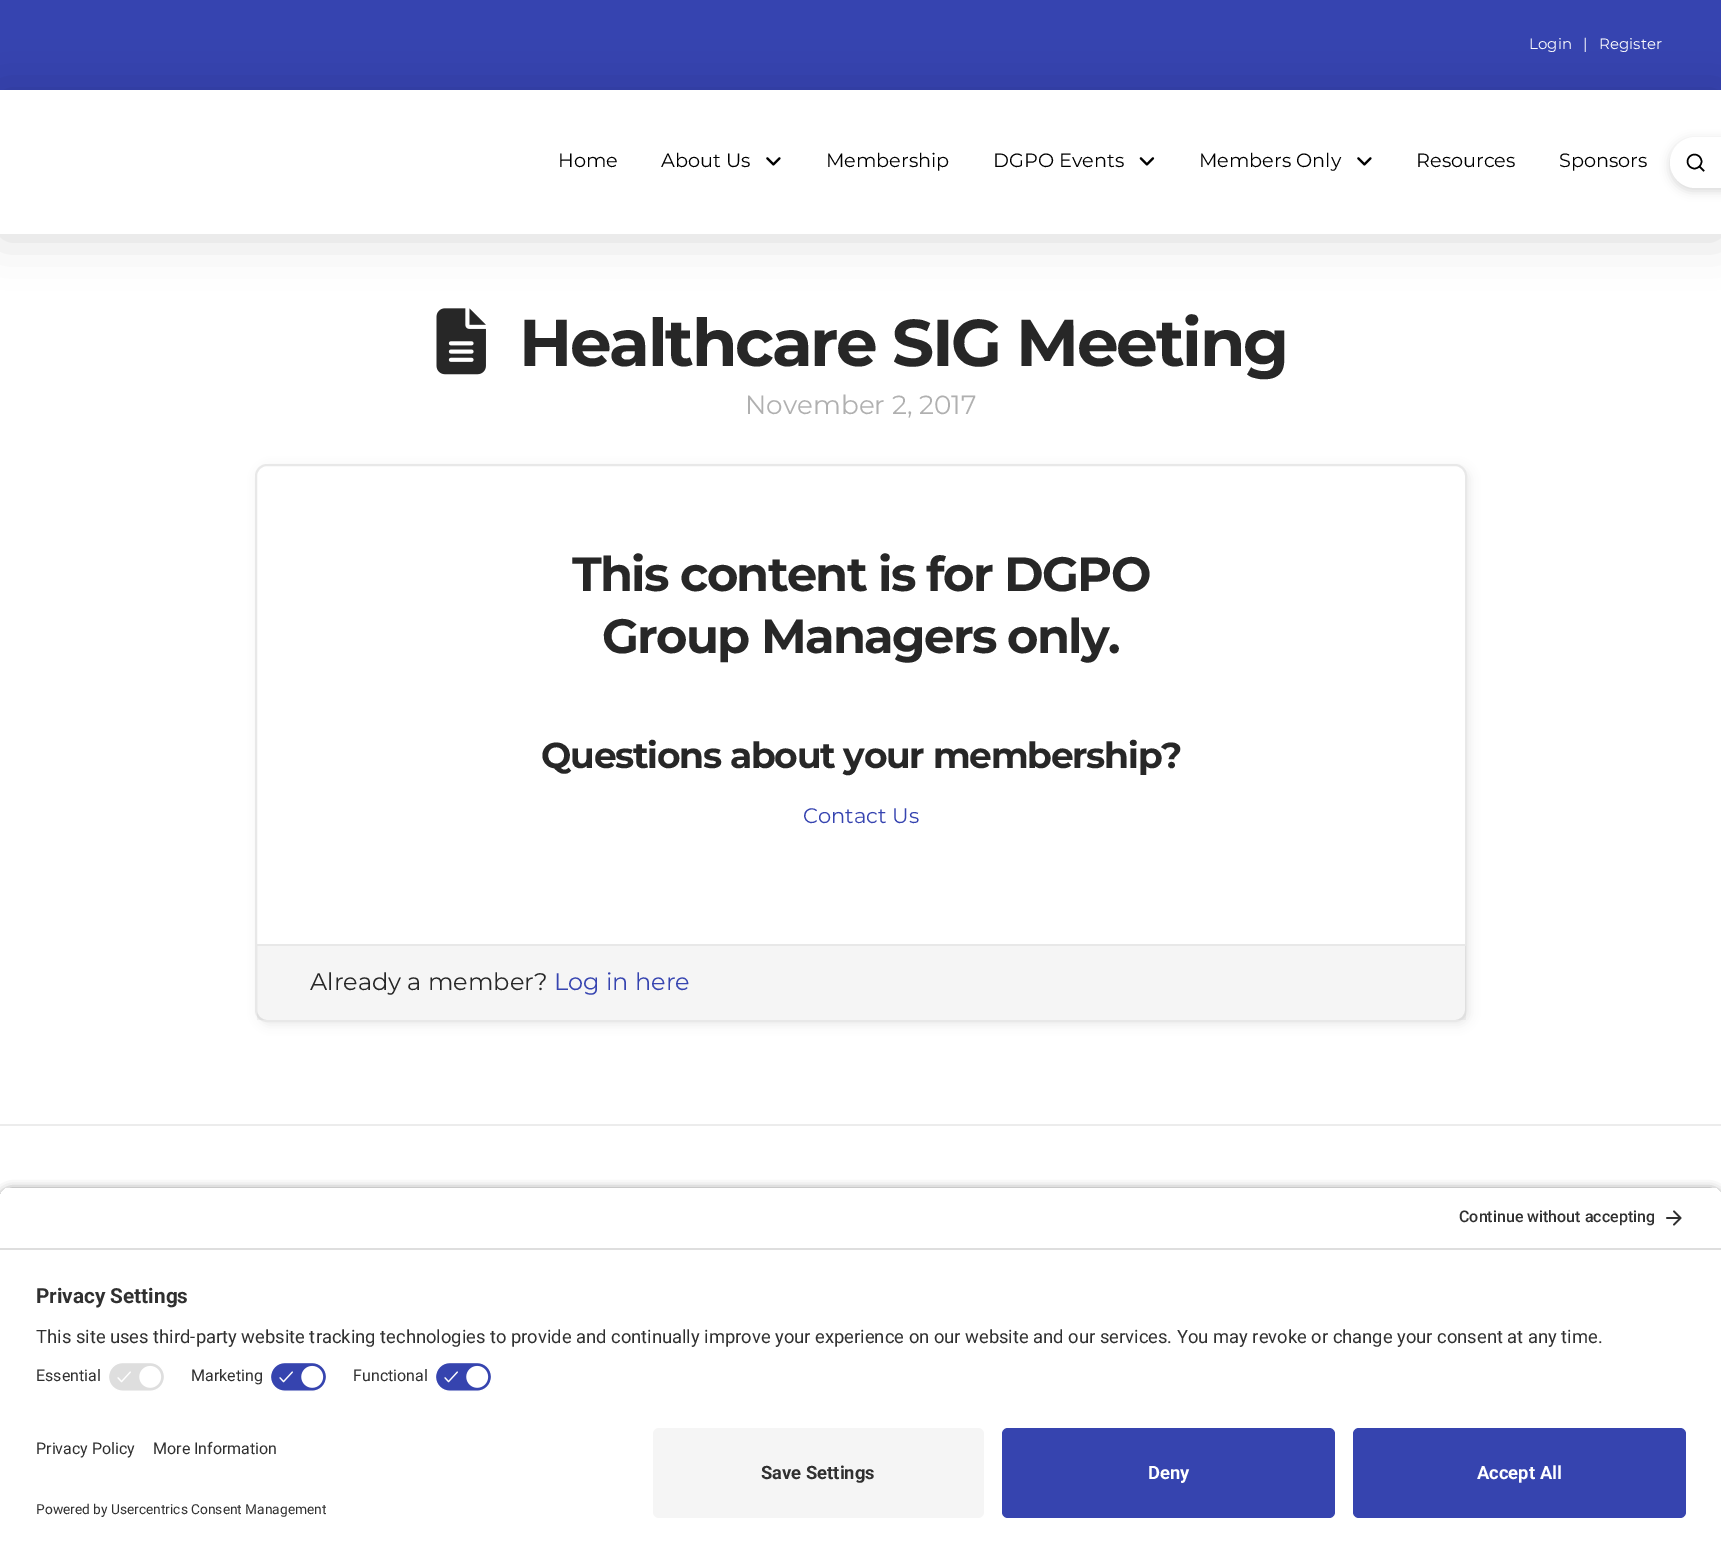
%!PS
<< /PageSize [1721 1554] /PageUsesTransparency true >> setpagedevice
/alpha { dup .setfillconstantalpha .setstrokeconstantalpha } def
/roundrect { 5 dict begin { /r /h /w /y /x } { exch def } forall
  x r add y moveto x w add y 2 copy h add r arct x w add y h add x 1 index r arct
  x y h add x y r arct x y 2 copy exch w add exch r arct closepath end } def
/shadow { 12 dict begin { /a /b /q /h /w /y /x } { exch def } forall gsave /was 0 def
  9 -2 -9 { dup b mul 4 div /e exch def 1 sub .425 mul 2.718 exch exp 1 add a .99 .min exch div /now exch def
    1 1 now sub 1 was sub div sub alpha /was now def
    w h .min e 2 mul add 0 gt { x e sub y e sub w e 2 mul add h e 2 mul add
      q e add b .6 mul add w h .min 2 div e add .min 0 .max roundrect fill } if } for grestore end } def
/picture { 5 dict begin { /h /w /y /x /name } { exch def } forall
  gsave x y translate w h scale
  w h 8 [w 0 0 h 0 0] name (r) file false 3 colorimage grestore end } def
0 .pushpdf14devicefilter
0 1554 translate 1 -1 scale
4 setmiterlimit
1 setgray
0 0 1721 1554 rectfill
0.212 0.267 0.69 setrgbcolor
0 0 1721 90 rectfill
/Montserrat-Regular [15 0 0 -15 0 0] selectfont
1 setgray
1529 49 moveto (Login) show
1583 49 moveto (|) show
1599 49 moveto (Register) show
(img3.rgb) 436 308 50 67 picture
0 setgray
0 93 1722 144 0 24 0.15 shadow
1 setgray
0 90 1721 144 rectfill
/Montserrat-Regular [19.25 0 0 -19.25 0 0] selectfont
0 setgray
558 167 moveto (Home) show
661 167 moveto (About Us) show
(img1.rgb) 766 157 15 9 picture
826 167 moveto (Membership) show
993 167 moveto (DGPO Events) show
(img2.rgb) 1139 157 16 9 picture
1199 167 moveto (Members Only) show
(img1.rgb) 1357 157 15 9 picture
1416 167 moveto (Resources) show
1559 167 moveto (Sponsors) show
1670 140 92 51 25.5 5 0.15 shadow
1 setgray
1670 137 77 51 25.5 roundrect fill
0 setgray
1.5 setlinewidth
newpath 1694.5 161.5 7 0 360 arc closepath stroke
2 setlinecap
newpath 1703.5 170.5 moveto 1699.5 166.5 lineto stroke
/Montserrat-Bold [66 0 0 -66 0 0] selectfont
0.153 setgray
519 366 moveto -2.3 0 (Healthcare SIG Meeting) ashow
/Montserrat-Regular [26.25 0 0 -26.25 0 0] selectfont
0.69 setgray
745 414 moveto (November 2, 2017) show
0 setgray
258 467 1212 558 12 5 0.07 shadow
1 setgray
256 465 1210 556 11 roundrect gsave fill grestore
0.91 setgray
2 setlinewidth
0 setlinecap
stroke
/Montserrat-Bold [48 0 0 -48 0 0] selectfont
0.153 setgray
572 591 moveto -1.7 0 (This content is for DGPO) ashow
602 653 moveto -1.7 0 (Group Managers only.) ashow
/Montserrat-Bold [36 0 0 -36 0 0] selectfont
541 768 moveto -1.25 0 (Questions about your membership?) ashow
/Montserrat-Regular [21 0 0 -21 0 0] selectfont
0.212 0.267 0.69 setrgbcolor
803 823 moveto (Contact Us) show
0.04 alpha
0 setgray
257 946 1209 74 rectfill
1 alpha
0.91 setgray
257 944 1209 2 rectfill
/Montserrat-Regular [24 0 0 -24 0 0] selectfont
0.153 setgray
310 990 moveto (Already a member?) show
0.212 0.267 0.69 setrgbcolor
554 990 moveto (Log in here) show
0.925 setgray
0 1124 1721 2 rectfill
0 setgray
0 1191 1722 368 12 5 0.8 shadow
gsave
newpath 12 1187 moveto 1710 1187 lineto 1716.5 1187 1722 1192.5 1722 1199 curveto 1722 1416 lineto 0 1416 lineto 0 1199 lineto 0 1192.5 5.5 1187 12 1187 curveto closepath clip newpath
1 setgray
0 1188 1721 60 rectfill
grestore
0.871 setgray
0 1248 1721 2 rectfill
/Roboto-Medium [16 0 0 -16 0 0] selectfont
0.188 setgray
1459 1222 moveto (Continue without accepting) show
(img4.rgb) 1666 1210 16 16 picture
1 setgray
0 1250 1721 304 rectfill
/Roboto-Bold [20.75 0 0 -20.75 0 0] selectfont
0.188 setgray
36 1303 moveto (Privacy Settings) show
/Roboto-Regular [18.38 0 0 -18.38 0 0] selectfont
36 1343 moveto (This site uses third-party website tracking technologies to provide and continually improve your experience on our website and our services. You may revoke or change your consent at any time.) show
/Roboto-Regular [16 0 0 -16 0 0] selectfont
36 1381 moveto (Essential) show
(img5.rgb) 109 1363 55 28 picture
191 1381 moveto (Marketing) show
(img6.rgb) 271 1363 55 29 picture
353 1381 moveto (Functional) show
(img6.rgb) 436 1363 55 29 picture
36 1454 moveto (Privacy Policy) show
153 1454 moveto (More Information) show
/Roboto-Regular [13.75 0 0 -13.75 0 0] selectfont
36 1514 moveto (Powered by Usercentrics Consent Management) show
0.961 setgray
653 1428 331 90 6 roundrect fill
/Roboto-Bold [18.38 0 0 -18.38 0 0] selectfont
0.188 setgray
761 1479 moveto (Save Settings) show
0.212 0.267 0.686 setrgbcolor
1002 1428 333 90 6 roundrect fill
1 setgray
1148 1479 moveto (Deny) show
0.212 0.267 0.686 setrgbcolor
1353 1428 333 90 6 roundrect fill
1 setgray
1477 1479 moveto (Accept All) show
.poppdf14devicefilter showpage
